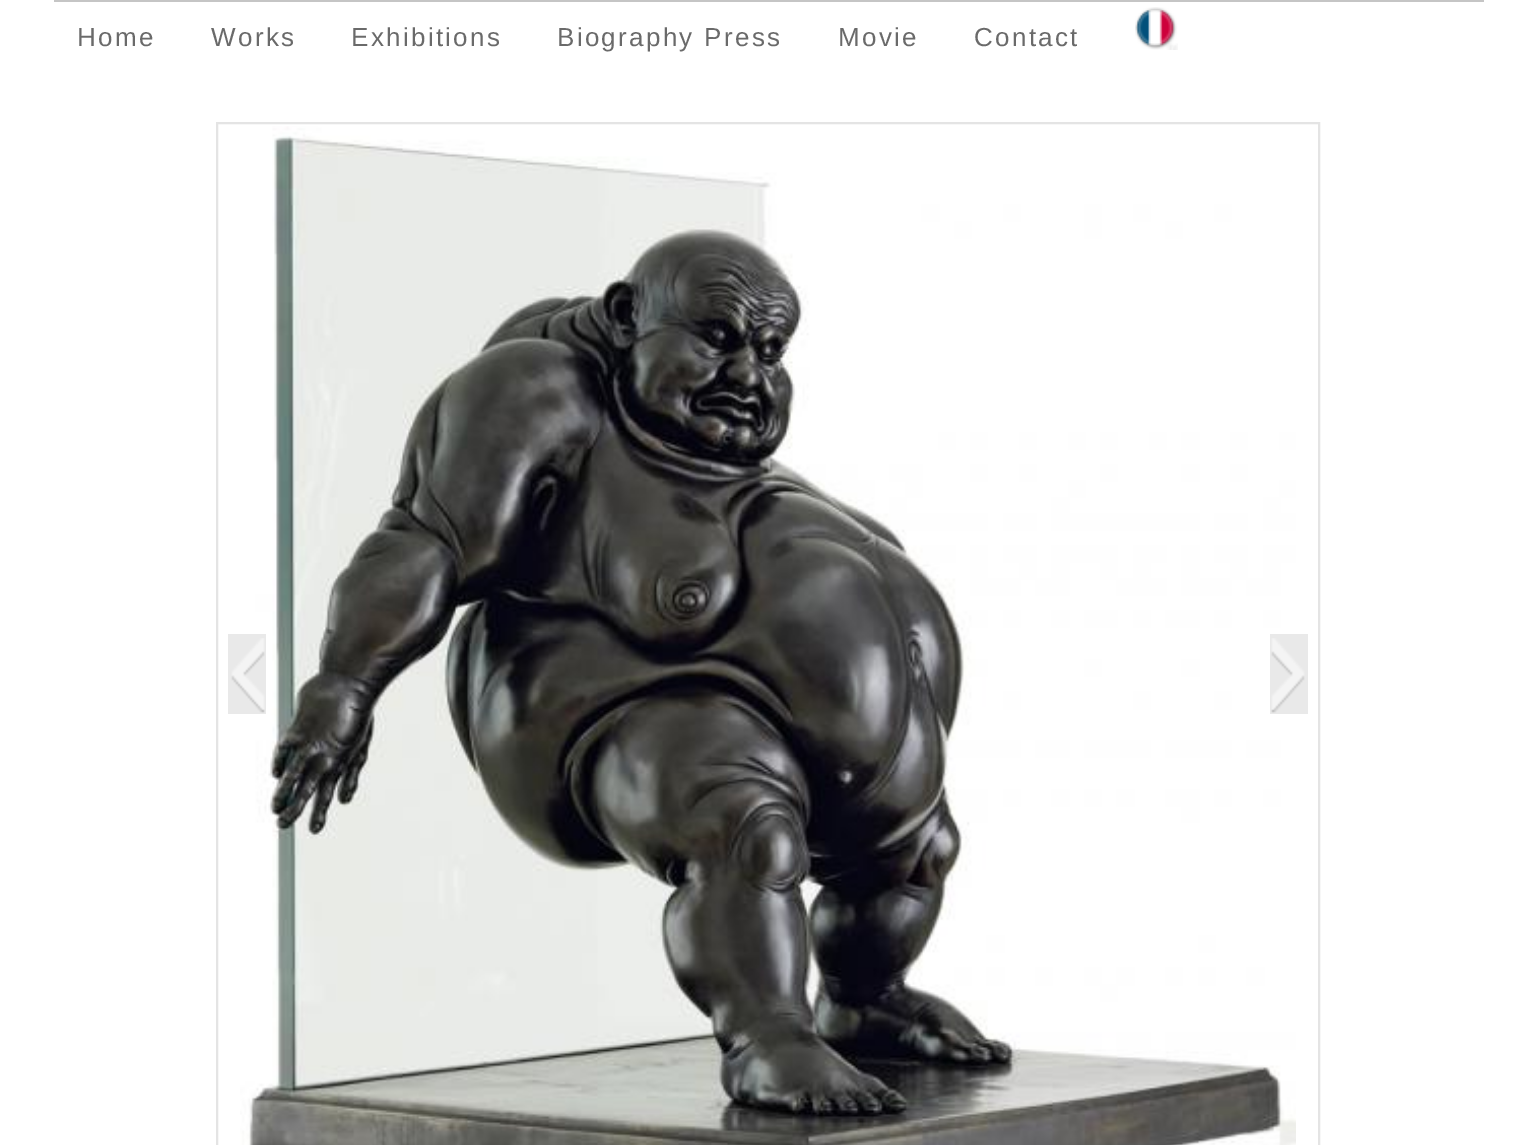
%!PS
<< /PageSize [1536 1145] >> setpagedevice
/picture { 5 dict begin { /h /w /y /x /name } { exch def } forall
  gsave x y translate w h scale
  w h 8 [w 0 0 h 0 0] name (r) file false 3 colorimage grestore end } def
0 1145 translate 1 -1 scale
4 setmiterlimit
1 setgray
0 0 1536 1145 rectfill
0.773 setgray
54 0 1430 2 rectfill
/LiberationSans-Regular [26 0 0 -26 0 0] selectfont
0.416 setgray
77 46 moveto 2.3 0 (Home) ashow
211 46 moveto 2.3 0 (Works) ashow
351 46 moveto 2.3 0 (Exhibitions) ashow
557 46 moveto 2.3 0 (Biography Press) ashow
838 46 moveto 2.3 0 (Movie) ashow
974 46 moveto 2.3 0 (Contact) ashow
(img1.rgb) 1135 7 43 43 picture
0.894 setgray
2 setlinewidth
217 123 1102 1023 rectstroke
(img2.rgb) 240 126 1056 1019 picture
0.914 setgray
228 634 38 80 rectfill
(img3.rgb) 231 638 34 75 picture
1270 634 38 80 rectfill
(img4.rgb) 1271 638 34 75 picture
showpage
